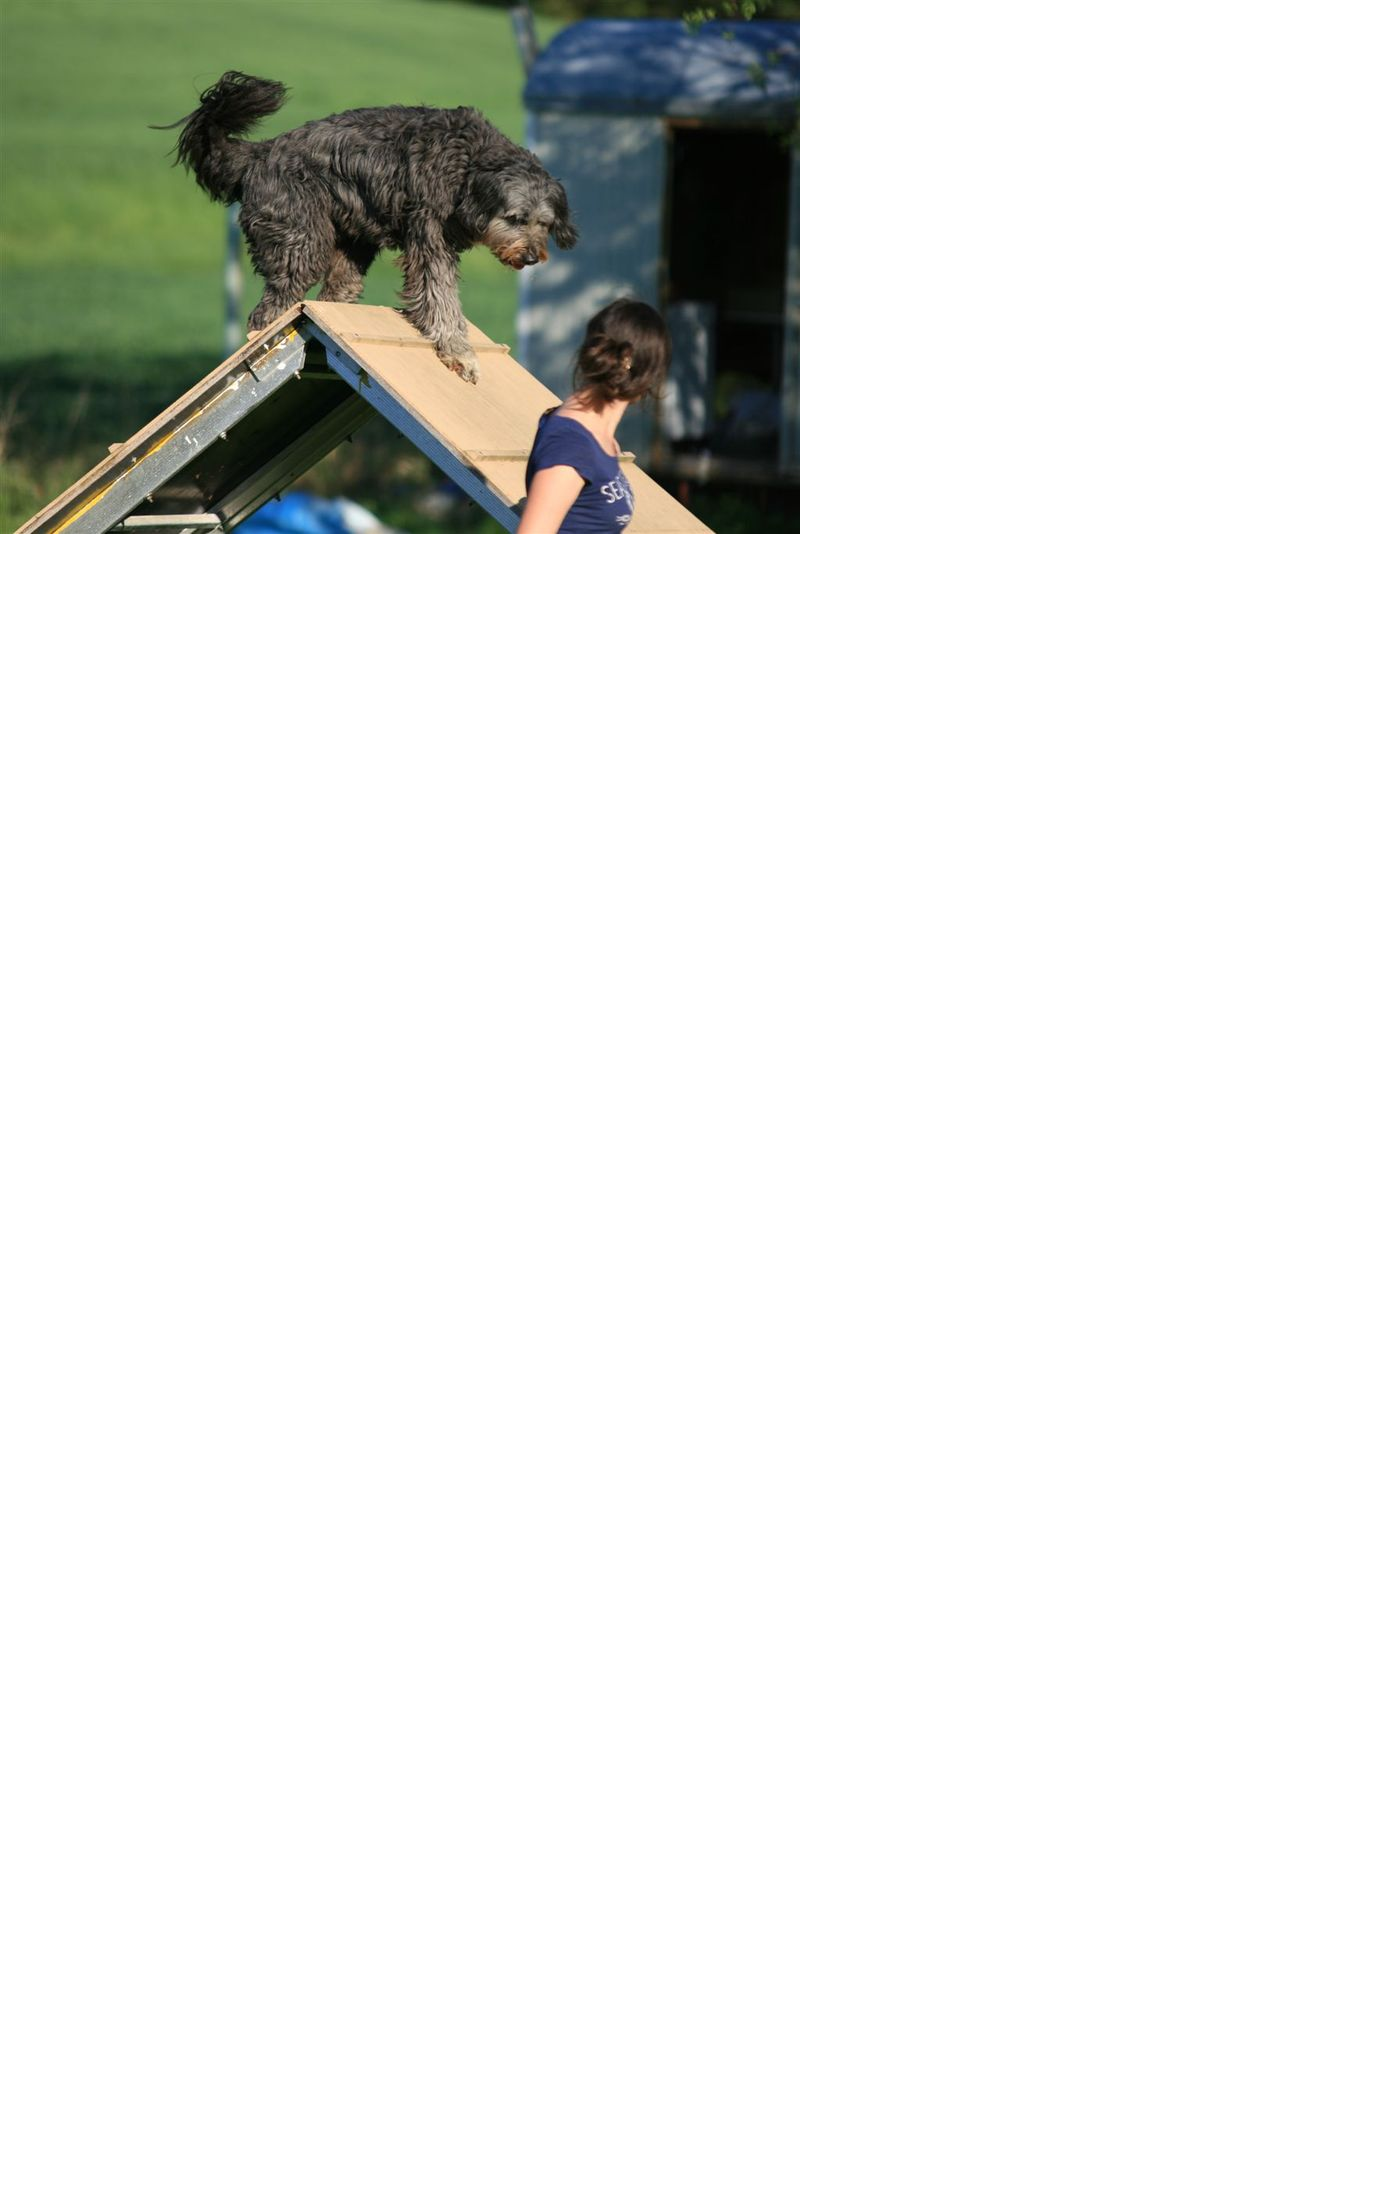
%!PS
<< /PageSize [1387 2210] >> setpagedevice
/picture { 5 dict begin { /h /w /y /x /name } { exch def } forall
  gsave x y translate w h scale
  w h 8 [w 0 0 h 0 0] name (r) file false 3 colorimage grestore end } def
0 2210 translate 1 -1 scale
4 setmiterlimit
1 setgray
0 0 1387 2210 rectfill
(img1.rgb) 0 0 800 534 picture
showpage
